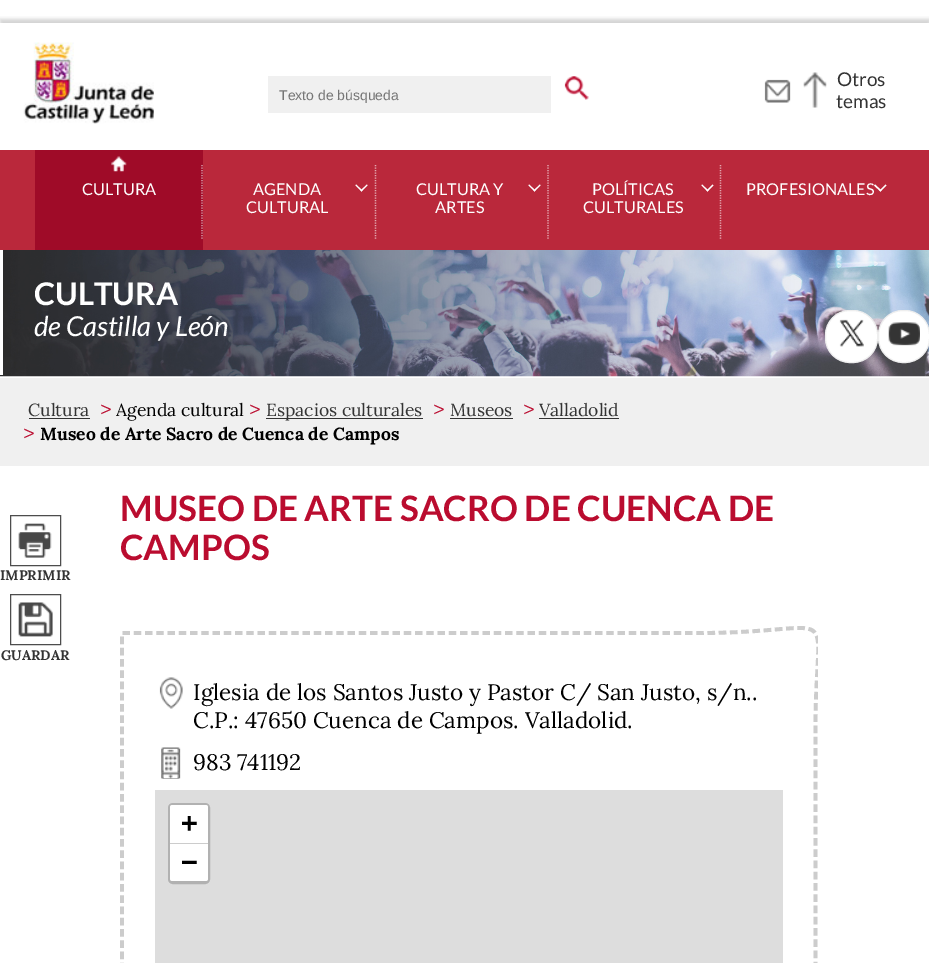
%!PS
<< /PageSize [929 963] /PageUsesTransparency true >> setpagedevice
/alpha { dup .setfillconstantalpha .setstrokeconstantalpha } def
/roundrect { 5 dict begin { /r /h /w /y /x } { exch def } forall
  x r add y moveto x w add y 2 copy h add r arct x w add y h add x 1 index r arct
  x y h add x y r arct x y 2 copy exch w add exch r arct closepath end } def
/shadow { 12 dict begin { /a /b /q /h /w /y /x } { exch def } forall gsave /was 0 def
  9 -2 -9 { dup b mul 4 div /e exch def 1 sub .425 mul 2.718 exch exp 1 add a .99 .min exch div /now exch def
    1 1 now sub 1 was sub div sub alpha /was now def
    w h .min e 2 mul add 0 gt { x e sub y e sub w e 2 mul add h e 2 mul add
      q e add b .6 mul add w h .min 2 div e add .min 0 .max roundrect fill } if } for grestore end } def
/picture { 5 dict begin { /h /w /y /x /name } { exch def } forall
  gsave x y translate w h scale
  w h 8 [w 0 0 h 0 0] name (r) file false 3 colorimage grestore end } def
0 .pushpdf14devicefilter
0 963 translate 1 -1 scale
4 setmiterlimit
1 setgray
0 0 929 963 rectfill
gsave
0 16 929 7 rectclip
0.294 setgray
0 19 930 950 0 2 0.25 shadow
grestore
(img1.rgb) 23 42 131 82 picture
0.941 setgray
268 76 283 37 rectfill
/LiberationSans-Regular [14 0 0 -14 0 0] selectfont
0.459 setgray
279 100 moveto (Texto de búsqueda) show
(img2.rgb) 564 76 25 24 picture
(img3.rgb) 764 79 27 24 picture
(img4.rgb) 803 72 24 36 picture
/Lato-Regular [19 0 0 -19 0 0] selectfont
0.2 setgray
837 86 moveto (Otros) show
836 108 moveto (temas) show
(img6.rgb) 0 250 929 127 picture
1 setgray
0 245 3 130 rectfill
0.729 0.157 0.231 setrgbcolor
0 150 929 100 rectfill
0.624 0.043 0.157 setrgbcolor
35 150 168 100 rectfill
(img5.rgb) 111 156 16 16 picture
/Lato-Regular [16.25 0 0 -16.25 0 0] selectfont
1 setgray
82 195 moveto (CULTURA) show
0.851 0.616 0.663 setrgbcolor
1.2 setlinewidth
[1.25 1.25] 0 setdash
newpath 202 165 moveto 202 240 lineto stroke
1 setgray
253 195 moveto (AGENDA) show
newpath 367 184.5 moveto 367.5 185.5 lineto 361.5 191.5 lineto 360.5 190.5 lineto closepath fill
newpath 356 184.5 moveto 362.5 190.5 lineto 361.5 191.5 lineto 355.5 185.5 lineto closepath fill
246 213 moveto (CULTURAL) show
0.89 0.663 0.694 setrgbcolor
newpath 375.5 165 moveto 375.5 240 lineto stroke
1 setgray
416 195 moveto (CULTURA Y) show
newpath 540 184.5 moveto 540.5 185.5 lineto 534.5 191.5 lineto 533.5 190.5 lineto closepath fill
newpath 529 184.5 moveto 535.5 190.5 lineto 534.5 191.5 lineto 528.5 185.5 lineto closepath fill
435 213 moveto (ARTES) show
0.89 0.663 0.694 setrgbcolor
newpath 548 165 moveto 548 240 lineto stroke
1 setgray
592 195 moveto (POLÍTICAS) show
newpath 712.5 184.5 moveto 713.5 185.5 lineto 707.5 191.5 lineto 706.5 190.5 lineto closepath fill
newpath 702 184.5 moveto 708.5 190.5 lineto 707.5 191.5 lineto 701.5 185.5 lineto closepath fill
583 213 moveto (CULTURALES) show
0.89 0.663 0.694 setrgbcolor
newpath 720.5 165 moveto 720.5 240 lineto stroke
1 setgray
746 195 moveto (PROFESIONALES) show
newpath 885.5 184.5 moveto 886.5 185.5 lineto 880.5 191.5 lineto 879.5 190.5 lineto closepath fill
newpath 875 184.5 moveto 881.5 190.5 lineto 880.5 191.5 lineto 874 185.5 lineto closepath fill
/Lato-Bold [31.25 0 0 -31.25 0 0] selectfont
34 305 moveto (CULTURA) show
/Lato-Italic [27.5 0 0 -27.5 0 0] selectfont
34 336 moveto (de Castilla y León) show
825.5 310.5 52 52 24.5 roundrect gsave fill grestore
0.933 setgray
1 setlinewidth
[] 0 setdash
stroke
(img7.rgb) 839 319 25 28 picture
1 setgray
878.5 310.5 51 52 24.5 roundrect gsave fill grestore
0.933 setgray
stroke
(img8.rgb) 888 322 32 24 picture
0.941 setgray
0 378 929 88 rectfill
/Lora-Regular [17.5 0 0 -17.5 0 0] selectfont
0.2 setgray
28 416 moveto (Cultura) show
29 418 61 1 rectfill
/Lora-Regular [21 0 0 -21 0 0] selectfont
0.729 0.047 0.184 setrgbcolor
100 416 moveto (>) show
/Lora-Regular [17.5 0 0 -17.5 0 0] selectfont
0 setgray
116 416 moveto (Agenda cultural) show
/Lora-Regular [21 0 0 -21 0 0] selectfont
0.729 0.047 0.184 setrgbcolor
249 416 moveto (>) show
0.2 setgray
266 418 157 1 rectfill
/Lora-Regular [17.5 0 0 -17.5 0 0] selectfont
266 416 moveto (Espacios culturales) show
/Lora-Regular [21 0 0 -21 0 0] selectfont
0.729 0.047 0.184 setrgbcolor
433 416 moveto (>) show
/Lora-Regular [17.5 0 0 -17.5 0 0] selectfont
0.2 setgray
450 416 moveto (Museos) show
450 418 63 1 rectfill
/Lora-Regular [21 0 0 -21 0 0] selectfont
0.729 0.047 0.184 setrgbcolor
523 416 moveto (>) show
/Lora-Regular [17.5 0 0 -17.5 0 0] selectfont
0.2 setgray
539 416 moveto (Valladolid) show
539 418 80 1 rectfill
/Lora-Regular [21 0 0 -21 0 0] selectfont
0.729 0.047 0.184 setrgbcolor
23 440 moveto (>) show
/Lora-Bold [17.5 0 0 -17.5 0 0] selectfont
0 setgray
40 440 moveto (Museo de Arte Sacro de Cuenca de Campos) show
/Lato-Bold [35 0 0 -35 0 0] selectfont
0.729 0.047 0.184 setrgbcolor
120 521 moveto (MUSEO DE ARTE SACRO DE CUENCA DE) show
120 560 moveto (CAMPOS) show
0.302 setgray
10.5 515.5 50 50 rectstroke
(img9.rgb) 18 523 34 35 picture
/Lora-Bold [13.75 0 0 -13.75 0 0] selectfont
0.2 setgray
0 580 moveto (IMPRIMIR) show
0.302 setgray
10.5 594.5 50 50 rectstroke
(img10.rgb) 18 602 35 35 picture
0.2 setgray
1 660 moveto (GUARDAR) show
gsave
120 466 698 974 rectclip
0.8 setgray
3.8 setlinewidth
[7.5 3.75] 0 setdash
newpath 122.5 633 moveto 699.5 633 lineto 846.5 633 815.5 595 815.5 727.5 curveto 815.5 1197.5 lineto 815 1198 lineto 238 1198 lineto 91 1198 122 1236 122 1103.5 curveto 122 634 lineto closepath stroke
grestore
(img11.rgb) 159 677 24 32 picture
/Lora-Regular [22.5 0 0 -22.5 0 0] selectfont
0 setgray
193 700 moveto (Iglesia de los Santos Justo y Pastor C/ San Justo, s/n..) show
193 728 moveto (C.P.: 47650 Cuenca de Campos. Valladolid.) show
(img12.rgb) 161 747 20 32 picture
193 770 moveto (983 741192) show
0.867 setgray
155 790 628 173 rectfill
0.694 setgray
3 setlinewidth
169.5 804.5 39 78 3.5 roundrect stroke
1 setgray
newpath 172.5 805 moveto 205.5 805 lineto 207 805 208 806 208 807.5 curveto 208 844 lineto 170 844 lineto 170 807.5 lineto 170 806 171 805 172.5 805 curveto closepath fill
0.8 setgray
170 843 38 1 rectfill
/DejaVuSansMono-Bold [27.5 0 0 -27.5 0 0] selectfont
0 setgray
181 832 moveto (+) show
1 setgray
newpath 170 844 moveto 208 844 lineto 208 878.5 lineto 208 880 207 881 205.5 881 curveto 172.5 881 lineto 171 881 170 880 170 878.5 curveto closepath fill
0 setgray
181 871 moveto (−) show
.poppdf14devicefilter showpage
